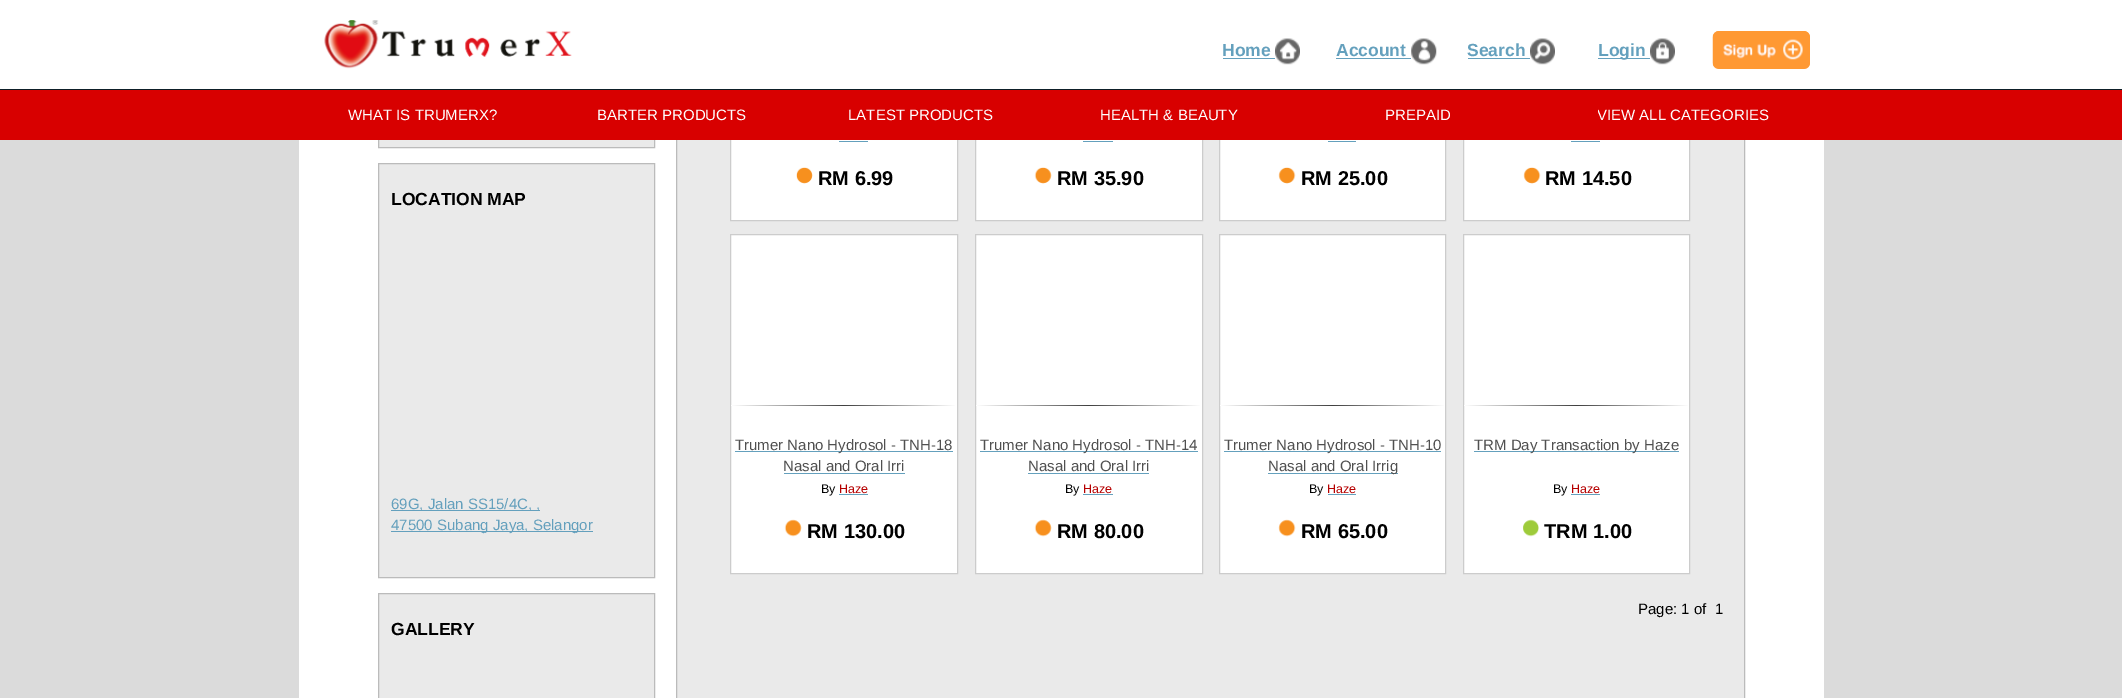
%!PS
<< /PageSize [2122 698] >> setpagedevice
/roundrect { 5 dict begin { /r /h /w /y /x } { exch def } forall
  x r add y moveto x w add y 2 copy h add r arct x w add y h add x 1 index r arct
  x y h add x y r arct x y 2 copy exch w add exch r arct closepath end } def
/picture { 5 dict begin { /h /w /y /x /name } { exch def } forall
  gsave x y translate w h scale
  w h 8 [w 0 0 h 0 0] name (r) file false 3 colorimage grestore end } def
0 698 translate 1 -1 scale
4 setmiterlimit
0.859 setgray
0 0 2122 698 rectfill
1 setgray
299 140 1525 558 rectfill
0.918 setgray
379 140 275 7 rectfill
0.733 setgray
378.5 -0.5 276 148 rectstroke
0.918 setgray
677 140 1067 558 rectfill
0.733 setgray
676.5 -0.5 1068 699 rectstroke
1 setgray
731 140 226 80 rectfill
0.8 setgray
730.5 -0.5 227 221 rectstroke
1 setgray
976 140 226 80 rectfill
0.8 setgray
975.5 -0.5 227 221 rectstroke
1 setgray
1220 140 225 80 rectfill
0.8 setgray
1219.5 -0.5 226 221 rectstroke
1 setgray
1464 140 225 80 rectfill
0.8 setgray
1463.5 -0.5 226 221 rectstroke
1 setgray
0 0 2122 89 rectfill
(img1.rgb) 324 20 248 49 picture
/LiberationSans-Bold [17.5 0 0 -17.5 0 0] selectfont
0.392 0.627 0.741 setrgbcolor
1222 56 moveto (Home) show
1223 58 52 1 rectfill
(img2.rgb) 1275 38 25 27 picture
1336 56 moveto (Account) show
1336 58 75 1 rectfill
(img3.rgb) 1411 38 26 27 picture
1467 56 moveto (Search) show
1468 58 62 1 rectfill
(img4.rgb) 1530 38 25 27 picture
1598 58 52 1 rectfill
1598 56 moveto (Login) show
(img5.rgb) 1650 38 25 27 picture
1 0.6 0.2 setrgbcolor
1713 31 97 38 6 roundrect fill
(img6.rgb) 1712 31 98 38 picture
0.055 0.122 0.157 setrgbcolor
0 89 2122 1 rectfill
0.847 0 0 setrgbcolor
0 90 2122 50 rectfill
/LiberationSans-Regular [15 0 0 -15 0 0] selectfont
1 setgray
348 120 moveto (WHAT IS TRUMERX?) show
597 120 moveto (BARTER PRODUCTS) show
848 120 moveto (LATEST PRODUCTS) show
1100 120 moveto (HEALTH & BEAUTY) show
1385 120 moveto (PREPAID) show
gsave
1598 90 171 45 rectclip
1597 120 moveto (VIEW ALL CATEGORIES) show
grestore
0.918 setgray
newpath 378.5 163.5 moveto 654.5 163.5 lineto 654.5 577.5 lineto 378.5 577.5 lineto closepath gsave fill grestore
0.733 setgray
stroke
/LiberationSans-Bold [17.5 0 0 -17.5 0 0] selectfont
0 setgray
391 205 moveto (LOCATION MAP) show
0.392 0.627 0.741 setrgbcolor
391 510 149 1 rectfill
/LiberationSans-Regular [15 0 0 -15 0 0] selectfont
391 509 moveto (69G, Jalan SS15/4C, ,) show
391 531 202 1 rectfill
391 530 moveto (47500 Subang Jaya, Selangor) show
0.918 setgray
newpath 378.5 593.5 moveto 654.5 593.5 lineto 654.5 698.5 lineto 378.5 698.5 lineto closepath gsave fill grestore
0.733 setgray
stroke
/LiberationSans-Bold [17.5 0 0 -17.5 0 0] selectfont
0 setgray
391 635 moveto (GALLERY) show
0.392 0.627 0.741 setrgbcolor
839 141 29 1 rectfill
(img7.rgb) 796 167 17 17 picture
/LiberationSans-Bold [20 0 0 -20 0 0] selectfont
0 setgray
818 185 moveto (RM 6.99) show
0.392 0.627 0.741 setrgbcolor
1083 141 30 1 rectfill
(img8.rgb) 1034 167 18 17 picture
0 setgray
1057 185 moveto (RM 35.90) show
0.392 0.627 0.741 setrgbcolor
1328 141 28 1 rectfill
(img9.rgb) 1278 167 18 17 picture
0 setgray
1301 185 moveto (RM 25.00) show
0.392 0.627 0.741 setrgbcolor
1571 141 29 1 rectfill
(img9.rgb) 1523 167 18 17 picture
0 setgray
1545 185 moveto (RM 14.50) show
1 setgray
newpath 730.5 234.5 moveto 957.5 234.5 lineto 957.5 573.5 lineto 730.5 573.5 lineto closepath gsave fill grestore
0.8 setgray
stroke
gsave newpath 731 405 moveto 956 405 lineto 956 406 lineto 731 406 lineto closepath clip newpath
<< /ShadingType 2 /ColorSpace /DeviceRGB /Coords [731 406 956 406] /Extend [true true] /Function << /FunctionType 3 /Domain [0 1] /Functions [<< /FunctionType 2 /Domain [0 1] /C0 [1 1 1] /C1 [0.251 0.251 0.251] /N 1 >> << /FunctionType 2 /Domain [0 1] /C0 [0.251 0.251 0.251] /C1 [1 1 1] /N 1 >>] /Bounds [0.5] /Encode [0 1 0 1] >> >> shfill grestore
0.392 0.627 0.741 setrgbcolor
735 451 218 1 rectfill
/LiberationSans-Regular [15 0 0 -15 0 0] selectfont
0.314 setgray
735 450 moveto (Trumer Nano Hydrosol - TNH-18) show
783 471 moveto (Nasal and Oral Irri) show
0.392 0.627 0.741 setrgbcolor
784 473 121 1 rectfill
/LiberationSans-Regular [12.5 0 0 -12.5 0 0] selectfont
0 setgray
821 493 moveto (By) show
0.714 0 0 setrgbcolor
839 493 moveto (Haze) show
0.392 0.627 0.741 setrgbcolor
839 494 29 1 rectfill
(img10.rgb) 784 519 18 18 picture
/LiberationSans-Bold [20 0 0 -20 0 0] selectfont
0 setgray
807 538 moveto (RM 130.00) show
1 setgray
newpath 975.5 234.5 moveto 1202.5 234.5 lineto 1202.5 573.5 lineto 975.5 573.5 lineto closepath gsave fill grestore
0.8 setgray
stroke
gsave newpath 976 405 moveto 1201 405 lineto 1201 406 lineto 976 406 lineto closepath clip newpath
<< /ShadingType 2 /ColorSpace /DeviceRGB /Coords [976 406 1201 406] /Extend [true true] /Function << /FunctionType 3 /Domain [0 1] /Functions [<< /FunctionType 2 /Domain [0 1] /C0 [1 1 1] /C1 [0.251 0.251 0.251] /N 1 >> << /FunctionType 2 /Domain [0 1] /C0 [0.251 0.251 0.251] /C1 [1 1 1] /N 1 >>] /Bounds [0.5] /Encode [0 1 0 1] >> >> shfill grestore
0.392 0.627 0.741 setrgbcolor
980 451 218 1 rectfill
/LiberationSans-Regular [15 0 0 -15 0 0] selectfont
0.314 setgray
980 450 moveto (Trumer Nano Hydrosol - TNH-14) show
1028 471 moveto (Nasal and Oral Irri) show
0.392 0.627 0.741 setrgbcolor
1028 473 121 1 rectfill
/LiberationSans-Regular [12.5 0 0 -12.5 0 0] selectfont
0 setgray
1065 493 moveto (By) show
0.714 0 0 setrgbcolor
1083 493 moveto (Haze) show
0.392 0.627 0.741 setrgbcolor
1083 494 30 1 rectfill
(img11.rgb) 1034 519 18 18 picture
/LiberationSans-Bold [20 0 0 -20 0 0] selectfont
0 setgray
1057 538 moveto (RM 80.00) show
1 setgray
newpath 1219.5 234.5 moveto 1445.5 234.5 lineto 1445.5 573.5 lineto 1219.5 573.5 lineto closepath gsave fill grestore
0.8 setgray
stroke
gsave newpath 1220 405 moveto 1445 405 lineto 1445 406 lineto 1220 406 lineto closepath clip newpath
<< /ShadingType 2 /ColorSpace /DeviceRGB /Coords [1220 406 1445 406] /Extend [true true] /Function << /FunctionType 3 /Domain [0 1] /Functions [<< /FunctionType 2 /Domain [0 1] /C0 [1 1 1] /C1 [0.251 0.251 0.251] /N 1 >> << /FunctionType 2 /Domain [0 1] /C0 [0.251 0.251 0.251] /C1 [1 1 1] /N 1 >>] /Bounds [0.5] /Encode [0 1 0 1] >> >> shfill grestore
0.392 0.627 0.741 setrgbcolor
1224 451 217 1 rectfill
/LiberationSans-Regular [15 0 0 -15 0 0] selectfont
0.314 setgray
1224 450 moveto (Trumer Nano Hydrosol - TNH-10) show
0.392 0.627 0.741 setrgbcolor
1268 473 130 1 rectfill
0.314 setgray
1268 471 moveto (Nasal and Oral Irrig) show
/LiberationSans-Regular [12.5 0 0 -12.5 0 0] selectfont
0 setgray
1309 493 moveto (By) show
0.714 0 0 setrgbcolor
1327 493 moveto (Haze) show
0.392 0.627 0.741 setrgbcolor
1328 494 28 1 rectfill
(img12.rgb) 1278 519 18 18 picture
/LiberationSans-Bold [20 0 0 -20 0 0] selectfont
0 setgray
1301 538 moveto (RM 65.00) show
1 setgray
newpath 1463.5 234.5 moveto 1689.5 234.5 lineto 1689.5 573.5 lineto 1463.5 573.5 lineto closepath gsave fill grestore
0.8 setgray
stroke
gsave newpath 1464 405 moveto 1689 405 lineto 1689 406 lineto 1464 406 lineto closepath clip newpath
<< /ShadingType 2 /ColorSpace /DeviceRGB /Coords [1464 406 1689 406] /Extend [true true] /Function << /FunctionType 3 /Domain [0 1] /Functions [<< /FunctionType 2 /Domain [0 1] /C0 [1 1 1] /C1 [0.251 0.251 0.251] /N 1 >> << /FunctionType 2 /Domain [0 1] /C0 [0.251 0.251 0.251] /C1 [1 1 1] /N 1 >>] /Bounds [0.5] /Encode [0 1 0 1] >> >> shfill grestore
0.392 0.627 0.741 setrgbcolor
1474 451 205 1 rectfill
/LiberationSans-Regular [15 0 0 -15 0 0] selectfont
0.314 setgray
1474 450 moveto (TRM Day Transaction by Haze) show
/LiberationSans-Regular [12.5 0 0 -12.5 0 0] selectfont
0 setgray
1553 493 moveto (By) show
0.714 0 0 setrgbcolor
1571 493 moveto (Haze) show
0.392 0.627 0.741 setrgbcolor
1571 494 29 1 rectfill
(img13.rgb) 1523 519 16 18 picture
/LiberationSans-Bold [20 0 0 -20 0 0] selectfont
0 setgray
1544 538 moveto (TRM 1.00) show
/LiberationSans-Regular [15 0 0 -15 0 0] selectfont
1638 614 moveto (Page: 1 of  1) show
showpage
